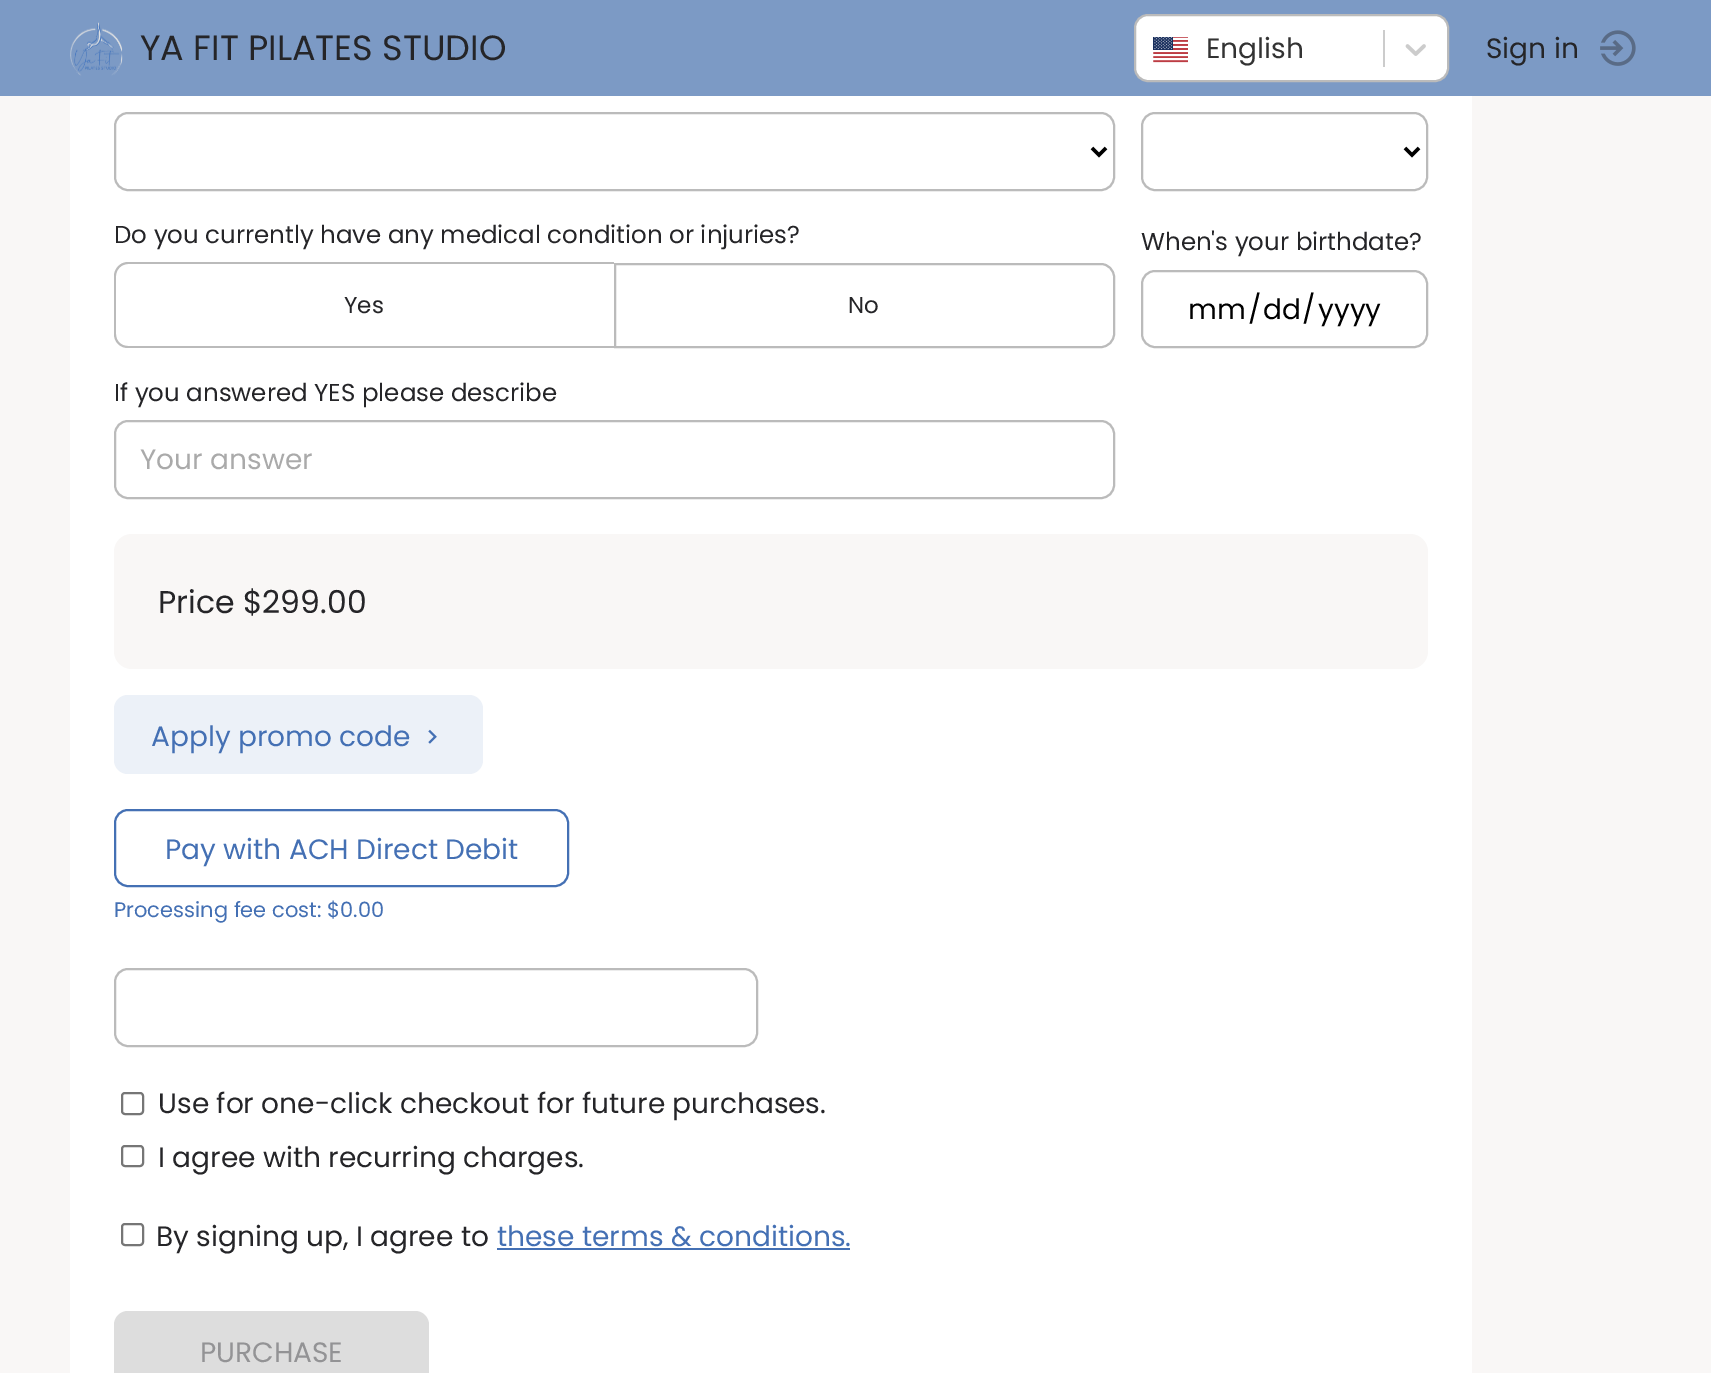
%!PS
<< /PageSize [1711 1373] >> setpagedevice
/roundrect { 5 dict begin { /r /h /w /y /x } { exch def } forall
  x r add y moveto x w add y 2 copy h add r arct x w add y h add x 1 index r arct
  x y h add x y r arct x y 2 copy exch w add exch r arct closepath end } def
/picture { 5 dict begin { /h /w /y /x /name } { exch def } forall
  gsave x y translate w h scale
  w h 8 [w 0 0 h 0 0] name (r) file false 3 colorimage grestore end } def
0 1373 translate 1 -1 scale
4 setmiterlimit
0.976 0.969 0.965 setrgbcolor
0 0 1711 1373 rectfill
0.486 0.604 0.773 setrgbcolor
0 0 1711 96 rectfill
(img1.rgb) 70 22 53 54 picture
/Poppins-Regular [35 0 0 -35 0 0] selectfont
0.145 0.145 0.157 setrgbcolor
140 60 moveto (YA FIT PILATES STUDIO) show
1 setgray
1135 15 313 66 13 roundrect gsave fill grestore
0.733 setgray
2 setlinewidth
stroke
(img2.rgb) 1153 37 35 26 picture
/Poppins-Regular [28 0 0 -28 0 0] selectfont
0.2 setgray
1206 58 moveto (English) show
0.8 setgray
1383 30 2 37 rectfill
(img3.rgb) 1405 44 21 12 picture
0.145 0.145 0.157 setrgbcolor
1486 58 moveto (Sign in) show
(img4.rgb) 1600 30 36 36 picture
1 setgray
70 96 1402 1277 rectfill
0.733 setgray
115 113 999 77 13 roundrect stroke
0 setgray
3.5 setlinewidth
newpath 1092 148 moveto 1099 155 lineto 1106 148 lineto stroke
0.733 setgray
2 setlinewidth
1142 113 285 77 13 roundrect stroke
0 setgray
3.5 setlinewidth
newpath 1405 148 moveto 1412 155 lineto 1419 148 lineto stroke
/Poppins-Regular [24.5 0 0 -24.5 0 0] selectfont
0.145 0.145 0.157 setrgbcolor
114 243 moveto (Do you currently have any medical condition or injuries?) show
0.733 setgray
newpath 128 262 moveto 614 262 lineto 614 348 lineto 128 348 lineto 120 348 114 342 114 334 curveto 114 276 lineto 114 269 120 262 128 262 curveto closepath 128 264 moveto 614 264 lineto 614 346 lineto 128 346 lineto 121 346 116 341 116 334 curveto 116 276 lineto 116 270 121 264 128 264 curveto closepath eofill
/Poppins-Regular [23 0 0 -23 0 0] selectfont
0.145 0.145 0.157 setrgbcolor
344 313 moveto (Yes) show
0.733 setgray
2 setlinewidth
newpath 615 264 moveto 1101 264 lineto 1108 264 1114 270 1114 277 curveto 1114 334 lineto 1114 341 1108 347 1101 347 curveto 615 347 lineto closepath stroke
0.145 0.145 0.157 setrgbcolor
848 313 moveto (No) show
/Poppins-Regular [24.5 0 0 -24.5 0 0] selectfont
1141 250 moveto (When's your birthdate?) show
0.733 setgray
1142 271 285 76 13 roundrect stroke
/Poppins-Regular [28 0 0 -28 0 0] selectfont
0 setgray
1188 319 moveto (mm) show
1248 319 moveto (/) show
1263 319 moveto (dd) show
1302 319 moveto (/) show
1318 319 moveto (yyyy) show
/Poppins-Regular [24.5 0 0 -24.5 0 0] selectfont
0.145 0.145 0.157 setrgbcolor
114 401 moveto (If you answered YES please describe) show
0.733 setgray
115 421 999 77 13 roundrect stroke
/Poppins-Regular [28 0 0 -28 0 0] selectfont
0.667 setgray
140 469 moveto (Your answer) show
0.976 0.969 0.965 setrgbcolor
114 534 1314 135 18 roundrect fill
/Poppins-Regular [31.5 0 0 -31.5 0 0] selectfont
0.145 0.145 0.157 setrgbcolor
158 613 moveto (Price $299.00) show
0.925 0.945 0.973 setrgbcolor
114 695 369 79 14 roundrect fill
/Poppins-Regular [28 0 0 -28 0 0] selectfont
0.267 0.439 0.706 setrgbcolor
151 746 moveto (Apply promo code) show
(img5.rgb) 428 729 9 15 picture
115 810 453 76 13 roundrect stroke
165 859 moveto (Pay with ACH Direct Debit) show
/Poppins-Regular [21 0 0 -21 0 0] selectfont
114 917 moveto (Processing fee cost: $0.00) show
0.733 setgray
115 969 642 77 13 roundrect stroke
0.463 setgray
122 1093 21 21 3 roundrect stroke
/Poppins-Regular [28 0 0 -28 0 0] selectfont
0.145 0.145 0.157 setrgbcolor
158 1113 moveto (Use for one-click checkout for future purchases.) show
0.463 setgray
122 1146 21 20 3 roundrect stroke
0.145 0.145 0.157 setrgbcolor
158 1167 moveto (I agree with recurring charges.) show
0.463 setgray
122 1224 21 21 3 roundrect stroke
0.145 0.145 0.157 setrgbcolor
156 1246 moveto (By signing up, I agree to) show
0.267 0.439 0.706 setrgbcolor
497 1246 moveto (these terms & conditions.) show
497 1248 353 2 rectfill
0.867 setgray
114 1311 315 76 14 roundrect fill
0.576 0.576 0.584 setrgbcolor
200 1362 moveto (PURCHASE) show
showpage
